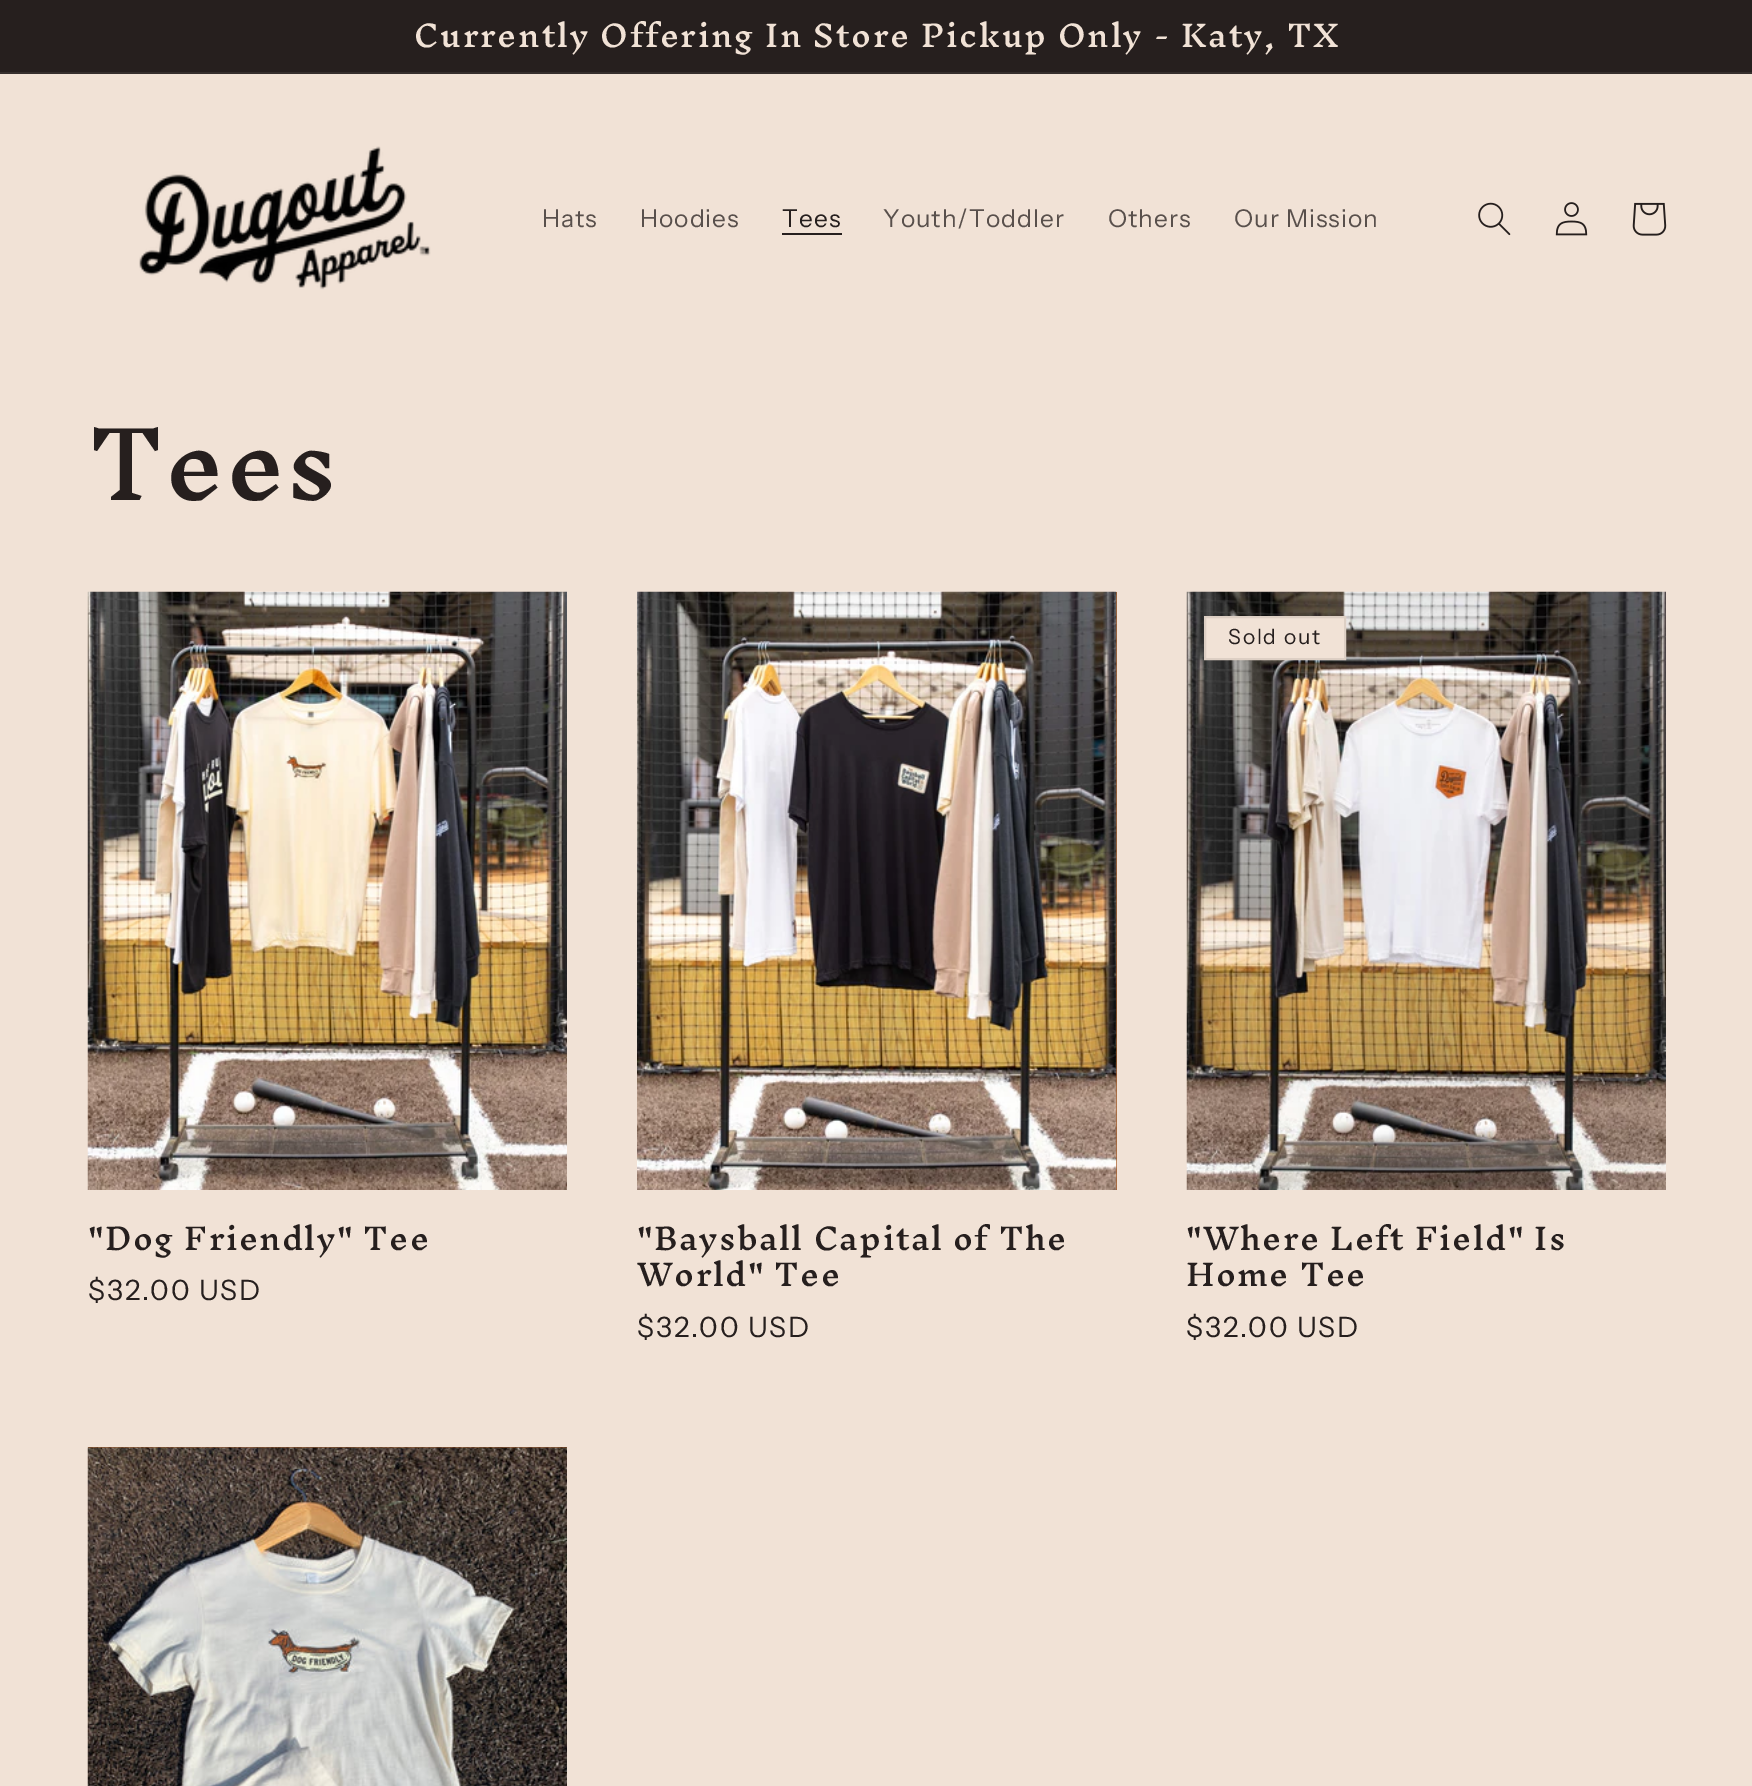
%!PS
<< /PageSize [1752 1786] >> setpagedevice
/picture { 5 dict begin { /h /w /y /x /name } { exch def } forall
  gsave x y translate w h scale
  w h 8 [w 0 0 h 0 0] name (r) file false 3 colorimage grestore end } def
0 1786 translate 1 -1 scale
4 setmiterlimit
0.945 0.886 0.839 setrgbcolor
0 0 1752 1786 rectfill
0.149 0.122 0.118 setrgbcolor
0 0 1752 72 rectfill
0.212 0.184 0.176 setrgbcolor
0 72 1752 2 rectfill
/InknutAntiqua-Medium [29.6 0 0 -29.6 0 0] selectfont
0.945 0.886 0.839 setrgbcolor
414 47 moveto 1.75 0 (Currently Offering In Store Pickup Only - Katy, TX) ashow
(img1.rgb) 139 146 292 144 picture
/InstrumentSans-Regular [24.5 0 0 -24.5 0 0] selectfont
0.349 0.314 0.298 setrgbcolor
542 227 moveto 1 0 (Hats) ashow
640 227 moveto 1 0 (Hoodies) ashow
0.149 0.122 0.118 setrgbcolor
782 227 moveto 1 0 (Tees) ashow
782 233 60 2 rectfill
0.349 0.314 0.298 setrgbcolor
883 227 moveto 1 0 (Youth/Toddler) ashow
1108 227 moveto 1 0 (Others) ashow
1234 227 moveto 1 0 (Our Mission) ashow
(img2.rgb) 1478 202 33 34 picture
(img3.rgb) 1555 202 33 34 picture
(img4.rgb) 1632 202 35 34 picture
/InknutAntiqua-Medium [91 0 0 -91 0 0] selectfont
0.149 0.122 0.118 setrgbcolor
88 500 moveto 1.4 0 (Tees) ashow
(img5.rgb) 87 591 480 599 picture
/InknutAntiqua-Medium [29.6 0 0 -29.6 0 0] selectfont
88 1250 moveto 1.4 0 ("Dog Friendly" Tee) ashow
/InstrumentSans-Regular [28 0 0 -28 0 0] selectfont
88 1300 moveto 1.75 0 ($32.00 USD) ashow
0.667 0.38 0.18 setrgbcolor
1116 592 1 598 rectfill
(img6.rgb) 637 591 480 599 picture
/InknutAntiqua-Medium [29.6 0 0 -29.6 0 0] selectfont
0.149 0.122 0.118 setrgbcolor
637 1250 moveto 1.4 0 ("Baysball Capital of The) ashow
637 1286 moveto 1.4 0 (World" Tee) ashow
/InstrumentSans-Regular [28 0 0 -28 0 0] selectfont
637 1337 moveto 1.75 0 ($32.00 USD) ashow
(img7.rgb) 1186 591 480 599 picture
0.945 0.886 0.839 setrgbcolor
newpath 1205 617 moveto 1345 617 lineto 1345 659 lineto 1205 659 lineto closepath gsave fill grestore
0.867 0.812 0.769 setrgbcolor
2 setlinewidth
stroke
/InstrumentSans-Regular [21 0 0 -21 0 0] selectfont
0.149 0.122 0.118 setrgbcolor
1228 644 moveto 1.75 0 (Sold out) ashow
/InknutAntiqua-Medium [29.6 0 0 -29.6 0 0] selectfont
1186 1250 moveto 1.4 0 ("Where Left Field" Is) ashow
1186 1286 moveto 1.4 0 (Home Tee) ashow
/InstrumentSans-Regular [28 0 0 -28 0 0] selectfont
1186 1337 moveto 1.75 0 ($32.00 USD) ashow
0.667 0.38 0.18 setrgbcolor
88 1447 479 1 rectfill
(img8.rgb) 87 1447 480 339 picture
showpage
